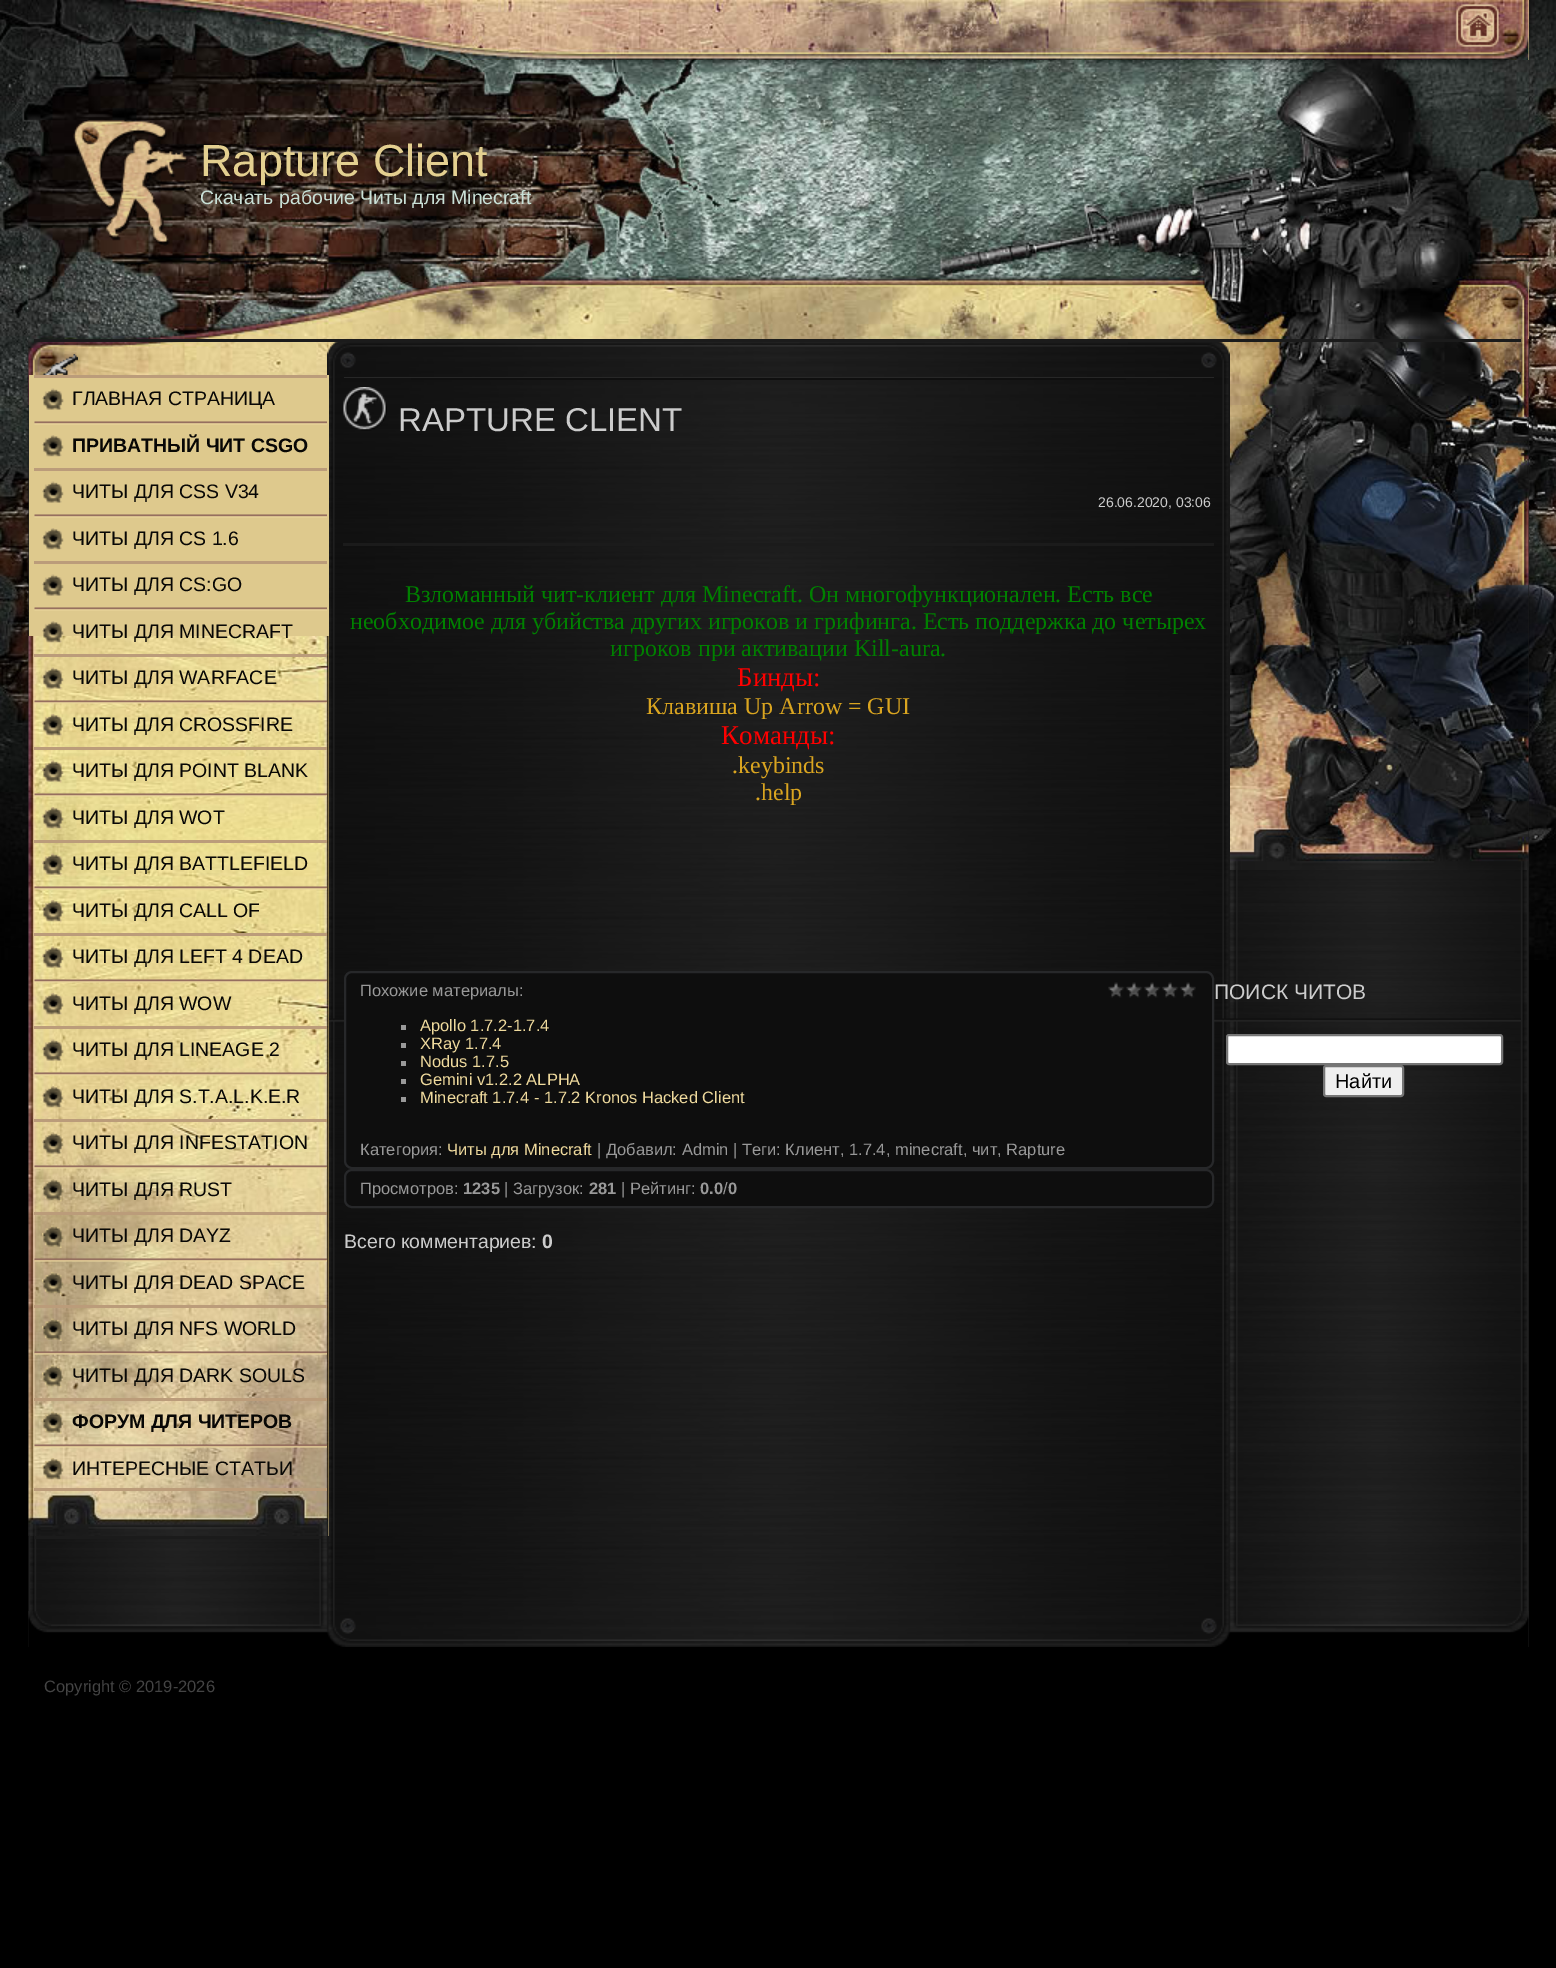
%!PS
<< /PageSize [1556 1968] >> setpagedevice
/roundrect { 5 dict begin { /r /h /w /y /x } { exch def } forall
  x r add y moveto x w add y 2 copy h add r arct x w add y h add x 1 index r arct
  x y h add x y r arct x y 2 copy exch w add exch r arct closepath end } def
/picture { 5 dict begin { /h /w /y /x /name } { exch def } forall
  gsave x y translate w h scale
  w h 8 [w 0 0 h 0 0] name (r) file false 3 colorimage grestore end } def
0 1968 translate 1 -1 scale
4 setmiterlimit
0 setgray
0 0 1556 1968 rectfill
(img1.rgb) 0 0 1556 960 picture
0.871 0.788 0.553 setrgbcolor
1528 0 1 60 rectfill
(img2.rgb) 28 0 1501 60 picture
(img3.rgb) 1456 4 43 43 picture
(img4.rgb) 28 60 1501 222 picture
(img5.rgb) 73 120 115 126 picture
/LiberationSans-Regular [45 0 0 -45 0 0] selectfont
0.894 0.816 0.565 setrgbcolor
200 176 moveto (Rapture Client) show
/LiberationSans-Regular [19.5 0 0 -19.5 0 0] selectfont
0.788 0.878 0.843 setrgbcolor
200 204 moveto (Скачать рабочие Читы для Minecraft) show
0.871 0.788 0.553 setrgbcolor
1528 282 1 57 rectfill
(img6.rgb) 28 282 1501 57 picture
0.067 setgray
1528 339 1 1308 rectfill
(img7.rgb) 28 339 1501 1308 picture
(img8.rgb) 28 339 1501 66 picture
(img9.rgb) 28 1611 1501 36 picture
(img10.rgb) 327 342 903 81 picture
0.871 0.788 0.553 setrgbcolor
29 375 300 1161 rectfill
(img11.rgb) 28 636 301 900 picture
0.733 0.612 0.478 setrgbcolor
34 1488 293 3 rectfill
34 375 293 3 rectfill
(img12.rgb) 42 388 22 22 picture
0.031 0.027 0.02 setrgbcolor
72 405 moveto (ГЛАВНАЯ СТРАНИЦА) show
(img13.rgb) 34 421 293 4 picture
(img14.rgb) 42 435 22 22 picture
/LiberationSans-Bold [19.5 0 0 -19.5 0 0] selectfont
72 452 moveto (ПРИВАТНЫЙ ЧИТ CSGO) show
0.733 0.612 0.478 setrgbcolor
34 468 293 3 rectfill
(img15.rgb) 42 481 22 22 picture
/LiberationSans-Regular [19.5 0 0 -19.5 0 0] selectfont
0.031 0.027 0.02 setrgbcolor
72 498 moveto (ЧИТЫ ДЛЯ CSS V34) show
(img13.rgb) 34 514 293 4 picture
(img16.rgb) 42 528 22 22 picture
72 545 moveto (ЧИТЫ ДЛЯ CS 1.6) show
0.733 0.612 0.478 setrgbcolor
34 561 293 3 rectfill
(img17.rgb) 42 574 22 22 picture
0.031 0.027 0.02 setrgbcolor
72 591 moveto (ЧИТЫ ДЛЯ CS:GO) show
(img13.rgb) 34 607 293 4 picture
(img18.rgb) 42 621 22 22 picture
72 638 moveto (ЧИТЫ ДЛЯ MINECRAFT) show
0.733 0.612 0.478 setrgbcolor
34 654 293 3 rectfill
(img19.rgb) 42 667 22 23 picture
0.031 0.027 0.02 setrgbcolor
72 684 moveto (ЧИТЫ ДЛЯ WARFACE) show
(img20.rgb) 34 700 293 4 picture
(img21.rgb) 42 714 22 23 picture
72 731 moveto (ЧИТЫ ДЛЯ CROSSFIRE) show
0.733 0.612 0.478 setrgbcolor
34 747 293 3 rectfill
(img22.rgb) 42 760 22 23 picture
0.031 0.027 0.02 setrgbcolor
72 777 moveto (ЧИТЫ ДЛЯ POINT BLANK) show
(img23.rgb) 34 793 293 4 picture
(img24.rgb) 42 807 22 23 picture
72 824 moveto (ЧИТЫ ДЛЯ WOT) show
0.733 0.612 0.478 setrgbcolor
34 840 293 3 rectfill
(img25.rgb) 42 853 22 23 picture
0.031 0.027 0.02 setrgbcolor
72 870 moveto (ЧИТЫ ДЛЯ BATTLEFIELD) show
(img26.rgb) 34 886 293 4 picture
(img27.rgb) 42 900 22 23 picture
72 917 moveto (ЧИТЫ ДЛЯ CALL OF) show
0.733 0.612 0.478 setrgbcolor
34 933 293 3 rectfill
(img28.rgb) 42 946 22 23 picture
0.031 0.027 0.02 setrgbcolor
72 963 moveto (ЧИТЫ ДЛЯ LEFT 4 DEAD) show
(img29.rgb) 34 979 293 4 picture
(img30.rgb) 42 993 22 22 picture
72 1010 moveto (ЧИТЫ ДЛЯ WOW) show
0.733 0.612 0.478 setrgbcolor
34 1026 293 3 rectfill
(img31.rgb) 42 1039 22 23 picture
0.031 0.027 0.02 setrgbcolor
72 1056 moveto (ЧИТЫ ДЛЯ LINEAGE 2) show
(img32.rgb) 34 1072 293 4 picture
(img33.rgb) 42 1086 22 23 picture
72 1103 moveto (ЧИТЫ ДЛЯ S.T.A.L.K.E.R) show
0.733 0.612 0.478 setrgbcolor
34 1119 293 3 rectfill
(img34.rgb) 42 1132 22 23 picture
0.031 0.027 0.02 setrgbcolor
72 1149 moveto (ЧИТЫ ДЛЯ INFESTATION) show
(img35.rgb) 34 1165 293 4 picture
(img36.rgb) 42 1179 22 23 picture
72 1196 moveto (ЧИТЫ ДЛЯ RUST) show
0.733 0.612 0.478 setrgbcolor
34 1212 293 3 rectfill
(img37.rgb) 42 1225 22 23 picture
0.031 0.027 0.02 setrgbcolor
72 1242 moveto (ЧИТЫ ДЛЯ DAYZ) show
(img38.rgb) 34 1258 293 4 picture
(img39.rgb) 42 1272 22 23 picture
72 1289 moveto (ЧИТЫ ДЛЯ DEAD SPACE) show
0.733 0.612 0.478 setrgbcolor
34 1305 293 3 rectfill
(img40.rgb) 42 1318 22 23 picture
0.031 0.027 0.02 setrgbcolor
72 1335 moveto (ЧИТЫ ДЛЯ NFS WORLD) show
(img41.rgb) 34 1351 293 4 picture
(img42.rgb) 42 1365 22 23 picture
72 1382 moveto (ЧИТЫ ДЛЯ DARK SOULS) show
0.733 0.612 0.478 setrgbcolor
34 1398 293 3 rectfill
(img43.rgb) 42 1411 22 23 picture
/LiberationSans-Bold [19.5 0 0 -19.5 0 0] selectfont
0.031 0.027 0.02 setrgbcolor
72 1428 moveto (ФОРУМ ДЛЯ ЧИТЕРОВ) show
(img44.rgb) 34 1444 293 4 picture
(img45.rgb) 42 1458 22 23 picture
/LiberationSans-Regular [19.5 0 0 -19.5 0 0] selectfont
72 1475 moveto (ИНТЕРЕСНЫЕ СТАТЬИ) show
0.106 setgray
34 1536 287 3 rectfill
0.153 setgray
344 377 870 1 rectfill
0.059 setgray
411 378 715 2 rectfill
(img46.rgb) 343 387 44 44 picture
/LiberationSans-Regular [33 0 0 -33 0 0] selectfont
0.8 setgray
398 431 moveto (RAPTURE CLIENT) show
/LiberationSans-Regular [14 0 0 -14 0 0] selectfont
1098 507 moveto (26.06.2020, 03:06) show
0.106 setgray
343 543 871 3 rectfill
/LiberationSerif-Regular [24 0 0 -24 0 0] selectfont
0 0.502 0 setrgbcolor
405 602 moveto (Взломанный чит-клиент для Minecraft. Он многофункционален. Есть все) show
350 629 moveto (необходимое для убийства других игроков и грифинга. Есть поддержка до четырех) show
610 656 moveto (игроков при активации Kill-aura.) show
/LiberationSerif-Regular [27 0 0 -27 0 0] selectfont
1 0 0 setrgbcolor
737 686 moveto (Бинды:) show
/LiberationSerif-Regular [24 0 0 -24 0 0] selectfont
0.855 0.647 0.125 setrgbcolor
646 714 moveto (Клавиша Up Arrow = GUI) show
/LiberationSerif-Regular [27 0 0 -27 0 0] selectfont
1 0 0 setrgbcolor
721 744 moveto (Команды:) show
/LiberationSerif-Regular [24 0 0 -24 0 0] selectfont
0.855 0.647 0.125 setrgbcolor
732 773 moveto (.keybinds) show
755 800 moveto (.help) show
(img50.rgb) 329 1018 1192 4 picture
0.055 setgray
345 972 868 196 7 roundrect gsave fill grestore
0.153 0.157 0.165 setrgbcolor
2 setlinewidth
stroke
/LiberationSans-Regular [16.5 0 0 -16.5 0 0] selectfont
0.6 setgray
360 996 moveto (Похожие материалы:) show
401 1025 5 5 rectfill
0.937 0.855 0.616 setrgbcolor
420 1031 moveto (Apollo 1.7.2-1.7.4) show
0.6 setgray
401 1043 5 5 rectfill
0.937 0.855 0.616 setrgbcolor
420 1049 moveto (XRay 1.7.4) show
0.6 setgray
401 1061 5 5 rectfill
0.937 0.855 0.616 setrgbcolor
420 1067 moveto (Nodus 1.7.5) show
0.6 setgray
401 1079 5 5 rectfill
0.937 0.855 0.616 setrgbcolor
420 1085 moveto (Gemini v1.2.2 ALPHA) show
0.6 setgray
401 1097 5 5 rectfill
0.937 0.855 0.616 setrgbcolor
420 1103 moveto (Minecraft 1.7.4 - 1.7.2 Kronos Hacked Client) show
(img47.rgb) 1108 982 88 16 picture
0.6 setgray
360 1155 moveto (Категория:) show
0.937 0.855 0.616 setrgbcolor
447 1155 moveto (Читы для Minecraft) show
0.6 setgray
597 1155 moveto (| Добавил: Admin | Теги: Клиент, 1.7.4, minecraft, чит, Rapture) show
0.055 setgray
345 1170 868 37 7 roundrect gsave fill grestore
0.153 0.157 0.165 setrgbcolor
stroke
0.6 setgray
360 1194 moveto (Просмотров:) show
/LiberationSans-Bold [16.5 0 0 -16.5 0 0] selectfont
463 1194 moveto (1235) show
/LiberationSans-Regular [16.5 0 0 -16.5 0 0] selectfont
504 1194 moveto (| Загрузок:) show
/LiberationSans-Bold [16.5 0 0 -16.5 0 0] selectfont
589 1194 moveto (281) show
/LiberationSans-Regular [16.5 0 0 -16.5 0 0] selectfont
621 1194 moveto (| Рейтинг:) show
/LiberationSans-Bold [16.5 0 0 -16.5 0 0] selectfont
700 1194 moveto (0.0 0) show
/LiberationSans-Regular [16.5 0 0 -16.5 0 0] selectfont
723 1194 moveto (/) show
/LiberationSans-Regular [19.5 0 0 -19.5 0 0] selectfont
0.8 setgray
344 1248 moveto (Всего комментариев:) show
/LiberationSans-Bold [19.5 0 0 -19.5 0 0] selectfont
542 1248 moveto (0) show
(img48.rgb) 1230 405 299 465 picture
0.106 setgray
34 339 1487 3 rectfill
(img49.rgb) 42 354 36 21 picture
/LiberationSans-Regular [21 0 0 -21 0 0] selectfont
0.8 setgray
1214 999 moveto (ПОИСК ЧИТОВ) show
1 setgray
1227 1035 275 29 2 roundrect gsave fill grestore
0.463 setgray
stroke
0.937 setgray
1324 1066 79 30 2 roundrect gsave fill grestore
0.463 setgray
stroke
/LiberationSans-Regular [20 0 0 -20 0 0] selectfont
0 setgray
1335 1088 moveto (Найти) show
/LiberationSans-Regular [16.5 0 0 -16.5 0 0] selectfont
0.267 setgray
44 1692 moveto (Copyright © 2019-2026) show
showpage
